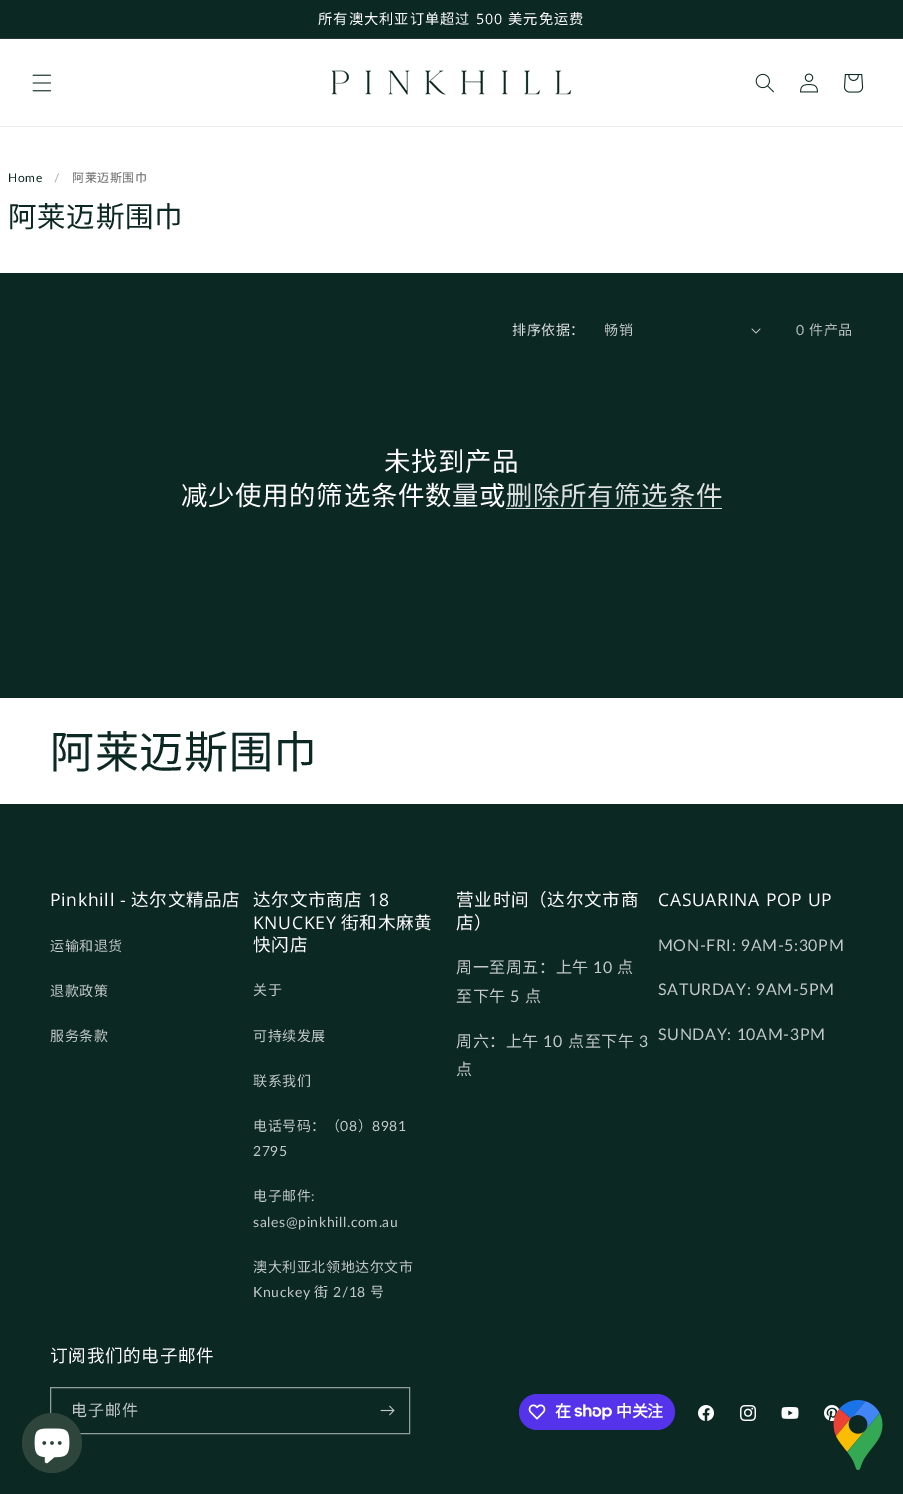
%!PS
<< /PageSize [903 1494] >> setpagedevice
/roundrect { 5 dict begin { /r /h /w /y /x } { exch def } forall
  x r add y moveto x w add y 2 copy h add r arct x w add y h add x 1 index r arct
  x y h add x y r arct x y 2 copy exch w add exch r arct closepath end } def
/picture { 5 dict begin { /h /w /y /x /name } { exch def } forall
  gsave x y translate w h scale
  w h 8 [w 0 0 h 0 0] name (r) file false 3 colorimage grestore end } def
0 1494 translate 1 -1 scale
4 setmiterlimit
0.047 0.157 0.133 setrgbcolor
0 0 903 1494 rectfill
0.122 0.224 0.204 setrgbcolor
0 38 903 1 rectfill
/NotoSansCJKSC-Regular [14.25 0 0 -14.25 0 0] selectfont
1 setgray
318 24 moveto 1 0 (所有澳大利亚订单超过) ashow
/OpenSans-Regular [14.25 0 0 -14.25 0 0] selectfont
476 24 moveto 1 0 (500) ashow
/NotoSansCJKSC-Regular [14.25 0 0 -14.25 0 0] selectfont
508 24 moveto 1 0 (美元免运费) ashow
0 39 903 87 rectfill
0.925 0.933 0.929 setrgbcolor
0 126 903 1 rectfill
(img1.rgb) 32 74 20 18 picture
(img2.rgb) 332 70 240 25 picture
(img3.rgb) 755 73 19 20 picture
(img4.rgb) 800 73 18 20 picture
(img5.rgb) 844 74 20 19 picture
1 setgray
0 127 903 146 rectfill
/Lato-Regular [12 0 0 -12 0 0] selectfont
0.047 0.157 0.133 setrgbcolor
8 182 moveto 0.6 0 (Home) ashow
0.639 setgray
54 182 moveto 0.6 0 (/) ashow
/NotoSansCJKSC-Regular [12 0 0 -12 0 0] selectfont
0.4 setgray
72 182 moveto 0.6 0 (阿莱迈斯围巾) ashow
/NotoSansCJKSC-Regular [28.5 0 0 -28.5 0 0] selectfont
0.047 0.157 0.133 setrgbcolor
8 227 moveto 0.7 0 (阿莱迈斯围巾) ashow
/NotoSansCJKSC-Regular [14 0 0 -14 0 0] selectfont
0.859 0.875 0.871 setrgbcolor
512 335 moveto 0.5 0 (排序依据：) ashow
0.761 0.788 0.784 setrgbcolor
604 335 moveto 0.5 0 (畅销) ashow
(img6.rgb) 751 328 10 6 picture
/Lato-Regular [14 0 0 -14 0 0] selectfont
0.714 0.749 0.741 setrgbcolor
796 335 moveto 0.6 0 (0) ashow
/NotoSansCJKSC-Regular [14 0 0 -14 0 0] selectfont
809 335 moveto 0.6 0 (件产品) ashow
/NotoSansCJKSC-Regular [26.4 0 0 -26.4 0 0] selectfont
1 setgray
384 471 moveto 0.7 0 (未找到产品) ashow
181 505 moveto 0.7 0 (减少使用的筛选条件数量或) ashow
0.859 0.875 0.871 setrgbcolor
506 505 moveto 0.7 0 (删除所有筛选条件) ashow
506 508 216 1 rectfill
1 setgray
0 698 903 106 rectfill
/NotoSansCJKSC-Regular [44 0 0 -44 0 0] selectfont
0.047 0.157 0.133 setrgbcolor
50 768 moveto 0.7 0 (阿莱迈斯围巾) ashow
/OpenSans-Regular [17.6 0 0 -17.6 0 0] selectfont
1 setgray
50 906 moveto 0.7 0 (Pinkhill -) ashow
/NotoSansCJKSC-Regular [17.6 0 0 -17.6 0 0] selectfont
131 906 moveto 0.7 0 (达尔文精品店) ashow
/NotoSansCJKSC-Regular [14 0 0 -14 0 0] selectfont
0.761 0.788 0.784 setrgbcolor
50 951 moveto 0.6 0 (运输和退货) ashow
50 996 moveto 0.6 0 (退款政策) ashow
50 1041 moveto 0.6 0 (服务条款) ashow
/NotoSansCJKSC-Regular [17.6 0 0 -17.6 0 0] selectfont
1 setgray
253 906 moveto 0.7 0 (达尔文市商店) ashow
/OpenSans-Regular [17.6 0 0 -17.6 0 0] selectfont
368 906 moveto 0.7 0 (18) ashow
253 929 moveto 0.7 0 (KNUCKEY) ashow
/NotoSansCJKSC-Regular [17.6 0 0 -17.6 0 0] selectfont
341 929 moveto 0.7 0 (街和木麻黄) ashow
253 951 moveto 0.7 0 (快闪店) ashow
/NotoSansCJKSC-Regular [14 0 0 -14 0 0] selectfont
0.761 0.788 0.784 setrgbcolor
253 995 moveto 0.6 0 (关于) ashow
253 1041 moveto 0.6 0 (可持续发展) ashow
253 1086 moveto 0.6 0 (联系我们) ashow
253 1131 moveto 0.6 0 (电话号码：（) ashow
/Lato-Regular [14 0 0 -14 0 0] selectfont
340 1131 moveto 0.6 0 (08) ashow
/NotoSansCJKSC-Regular [14 0 0 -14 0 0] selectfont
358 1131 moveto 0.6 0 (）) ashow
/Lato-Regular [14 0 0 -14 0 0] selectfont
372 1131 moveto 0.6 0 (8981) ashow
253 1156 moveto 0.6 0 (2795) ashow
/NotoSansCJKSC-Regular [14 0 0 -14 0 0] selectfont
253 1201 moveto 0.6 0 (电子邮件) ashow
/Lato-Regular [14 0 0 -14 0 0] selectfont
311 1201 moveto 0.6 0 (:) ashow
253 1227 moveto 0.6 0 (sales@pinkhill.com.au) ashow
/NotoSansCJKSC-Regular [14 0 0 -14 0 0] selectfont
253 1272 moveto 0.6 0 (澳大利亚北领地达尔文市) ashow
/Lato-Regular [14 0 0 -14 0 0] selectfont
253 1297 moveto 0.6 0 (Knuckey) ashow
/NotoSansCJKSC-Regular [14 0 0 -14 0 0] selectfont
314 1297 moveto 0.6 0 (街) ashow
/Lato-Regular [14 0 0 -14 0 0] selectfont
333 1297 moveto 0.6 0 (2/18) ashow
/NotoSansCJKSC-Regular [14 0 0 -14 0 0] selectfont
370 1297 moveto 0.6 0 (号) ashow
/NotoSansCJKSC-Regular [17.6 0 0 -17.6 0 0] selectfont
1 setgray
456 906 moveto 0.7 0 (营业时间（达尔文市商) ashow
456 929 moveto 0.7 0 (店）) ashow
/NotoSansCJKSC-Regular [16 0 0 -16 0 0] selectfont
0.761 0.788 0.784 setrgbcolor
456 973 moveto 0.6 0 (周一至周五：上午) ashow
/Lato-Regular [16 0 0 -16 0 0] selectfont
593 973 moveto 0.6 0 (10) ashow
/NotoSansCJKSC-Regular [16 0 0 -16 0 0] selectfont
617 973 moveto 0.6 0 (点) ashow
456 1002 moveto 0.6 0 (至下午) ashow
/Lato-Regular [16 0 0 -16 0 0] selectfont
510 1002 moveto 0.6 0 (5) ashow
/NotoSansCJKSC-Regular [16 0 0 -16 0 0] selectfont
525 1002 moveto 0.6 0 (点) ashow
456 1047 moveto 0.6 0 (周六：上午) ashow
/Lato-Regular [16 0 0 -16 0 0] selectfont
543 1047 moveto 0.6 0 (10) ashow
/NotoSansCJKSC-Regular [16 0 0 -16 0 0] selectfont
568 1047 moveto 0.6 0 (点至下午) ashow
/Lato-Regular [16 0 0 -16 0 0] selectfont
639 1047 moveto 0.6 0 (3) ashow
/NotoSansCJKSC-Regular [16 0 0 -16 0 0] selectfont
456 1075 moveto 0.6 0 (点) ashow
/OpenSans-Regular [17.6 0 0 -17.6 0 0] selectfont
1 setgray
658 906 moveto 0.7 0 (CASUARINA POP UP) ashow
/Lato-Regular [16 0 0 -16 0 0] selectfont
0.761 0.788 0.784 setrgbcolor
658 951 moveto 0.6 0 (MON-FRI: 9AM-5:30PM) ashow
658 995 moveto 0.6 0 (SATURDAY: 9AM-5PM) ashow
658 1040 moveto 0.6 0 (SUNDAY: 10AM-3PM) ashow
/NotoSansCJKSC-Regular [17.6 0 0 -17.6 0 0] selectfont
1 setgray
50 1362 moveto 0.7 0 (订阅我们的电子邮件) ashow
0.573 0.62 0.612 setrgbcolor
50.5 1387.5 359 46 rectstroke
/NotoSansCJKSC-Regular [16 0 0 -16 0 0] selectfont
0.761 0.788 0.784 setrgbcolor
71 1416 moveto 1 0 (电子邮件) ashow
(img7.rgb) 380 1405 15 11 picture
0.329 0.2 0.922 setrgbcolor
519 1394 156 36 18 roundrect fill
(img8.rgb) 528 1404 18 16 picture
/NotoSansCJKSC-Bold [16 0 0 -16 0 0] selectfont
1 setgray
555 1417 moveto -0.5 0 (在) ashow
(img9.rgb) 574 1404 38 16 picture
616 1417 moveto -0.5 0 (中关注) ashow
(img10.rgb) 698 1405 16 16 picture
(img11.rgb) 740 1405 16 16 picture
(img12.rgb) 781 1407 18 12 picture
(img13.rgb) 824 1405 16 16 picture
0.18 0.271 0.235 setrgbcolor
newpath 52 1443 30 0 360 arc closepath fill
(img14.rgb) 34 1428 36 36 picture
(img15.rgb) 833 1400 50 70 picture
showpage
